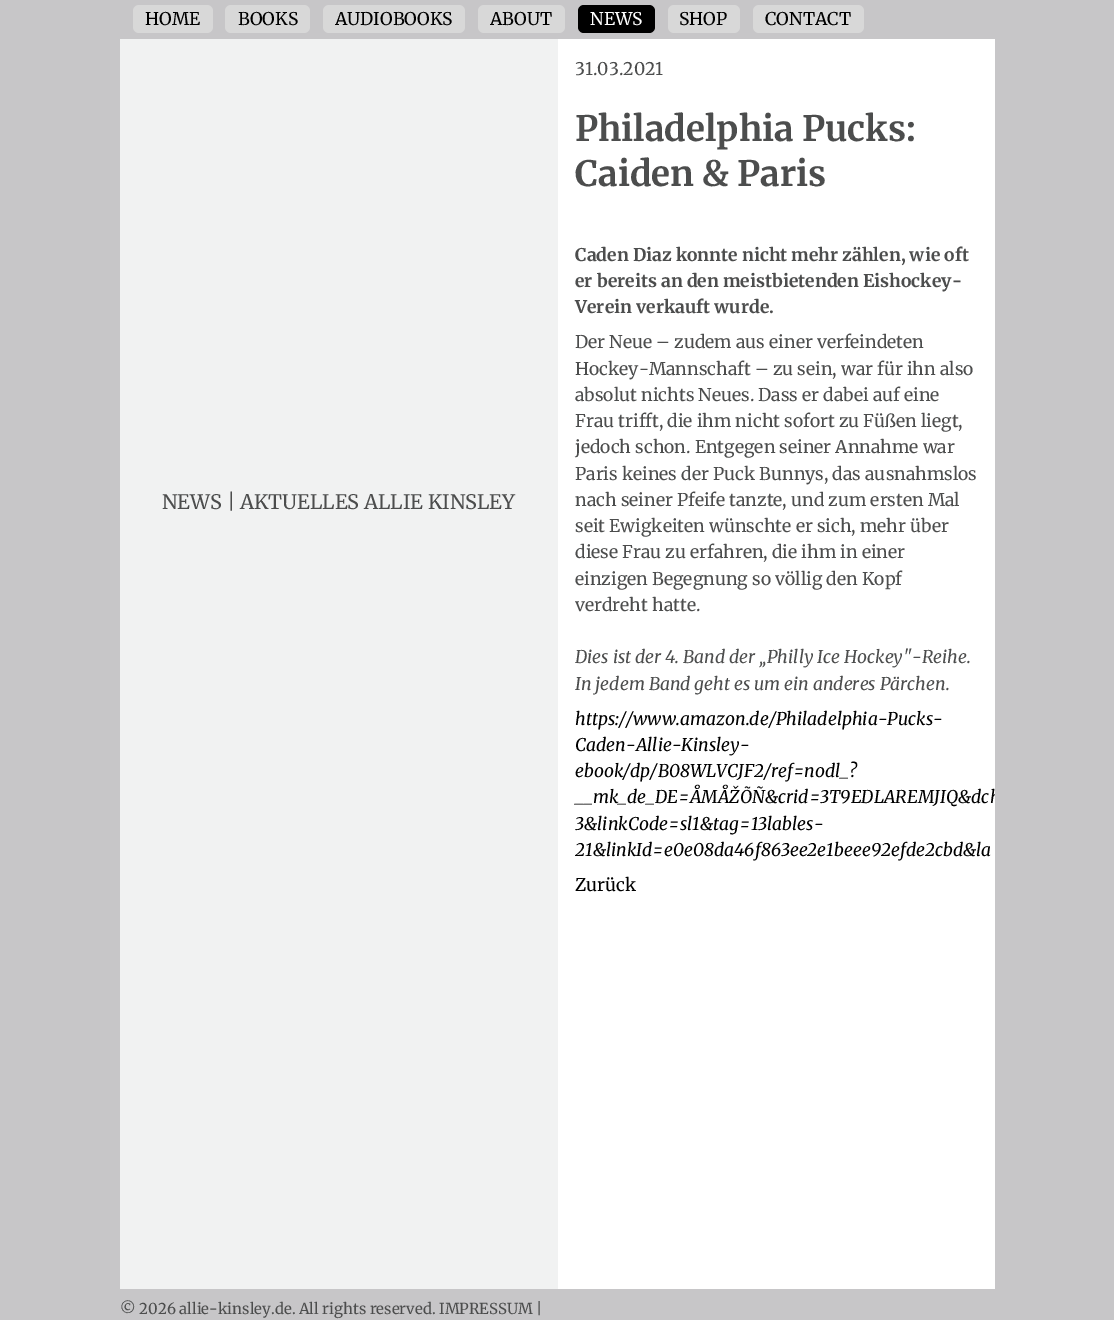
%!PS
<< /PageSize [1114 1320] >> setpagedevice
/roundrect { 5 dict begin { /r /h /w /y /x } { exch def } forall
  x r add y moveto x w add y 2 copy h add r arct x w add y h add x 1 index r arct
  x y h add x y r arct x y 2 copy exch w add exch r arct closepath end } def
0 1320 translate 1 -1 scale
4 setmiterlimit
0.78 0.776 0.784 setrgbcolor
0 0 1114 1320 rectfill
0.847 setgray
133 5 80 28 6 roundrect fill
/Merriweather-Regular [17.5 0 0 -17.5 0 0] selectfont
0 setgray
145 25 moveto (HOME) show
0.847 setgray
225 5 85 28 6 roundrect fill
0 setgray
238 25 moveto (BOOKS) show
0.847 setgray
323 5 142 28 6 roundrect fill
0 setgray
335 25 moveto (AUDIOBOOKS) show
0.847 setgray
478 5 87 28 6 roundrect fill
0 setgray
490 25 moveto (ABOUT) show
578 5 77 28 6 roundrect fill
1 setgray
590 25 moveto (NEWS) show
0.847 setgray
668 5 72 28 6 roundrect fill
0 setgray
679 25 moveto (SHOP) show
0.847 setgray
753 5 111 28 6 roundrect fill
0 setgray
765 25 moveto (CONTACT) show
0.945 0.949 0.949 setrgbcolor
120 39 438 1250 rectfill
/Merriweather-Regular [20 0 0 -20 0 0] selectfont
0.298 0.302 0.302 setrgbcolor
162 509 moveto (NEWS | AKTUELLES ALLIE KINSLEY) show
1 setgray
558 39 437 1250 rectfill
/Merriweather-Regular [17.5 0 0 -17.5 0 0] selectfont
0.298 0.302 0.302 setrgbcolor
575 75 moveto (31.03.2021) show
/Merriweather-Bold [35 0 0 -35 0 0] selectfont
575 141 moveto (Philadelphia Pucks:) show
575 186 moveto (Caiden & Paris) show
/Merriweather-Bold [17.5 0 0 -17.5 0 0] selectfont
575 261 moveto (Caden Diaz konnte nicht mehr zählen, wie oft) show
575 287 moveto (er bereits an den meistbietenden Eishockey-) show
575 313 moveto (Verein verkauft wurde.) show
/Merriweather-Regular [17.5 0 0 -17.5 0 0] selectfont
575 348 moveto (Der Neue – zudem aus einer verfeindeten) show
575 375 moveto (Hockey-Mannschaft – zu sein, war für ihn also) show
575 401 moveto (absolut nichts Neues. Dass er dabei auf eine) show
575 427 moveto (Frau trifft, die ihm nicht sofort zu Füßen liegt,) show
575 453 moveto (jedoch schon. Entgegen seiner Annahme war) show
575 480 moveto (Paris keines der Puck Bunnys, das ausnahmslos) show
575 506 moveto (nach seiner Pfeife tanzte, und zum ersten Mal) show
575 532 moveto (seit Ewigkeiten wünschte er sich, mehr über) show
575 558 moveto (diese Frau zu erfahren, die ihm in einer) show
575 585 moveto (einzigen Begegnung so völlig den Kopf) show
575 611 moveto (verdreht hatte.) show
/Merriweather-Italic [17.5 0 0 -17.5 0 0] selectfont
575 663 moveto (Dies ist der 4. Band der „Philly Ice Hockey"-Reihe.) show
575 690 moveto (In jedem Band geht es um ein anderes Pärchen.) show
0 setgray
575 725 moveto (https://www.amazon.de/Philadelphia-Pucks-) show
575 751 moveto (Caden-Allie-Kinsley-) show
575 777 moveto (ebook/dp/B08WLVCJF2/ref=nodl_?) show
gsave
558 39 437 1250 rectclip
575 803 moveto (__mk_de_DE=ÅMÅŽÕÑ&crid=3T9EDLAREMJIQ&dch) show
grestore
575 830 moveto (3&linkCode=sl1&tag=13lables-) show
575 856 moveto (21&linkId=e0e08da46f863ee2e1beee92efde2cbd&la) show
/Merriweather-Regular [17.5 0 0 -17.5 0 0] selectfont
575 891 moveto (Zurück) show
/Merriweather-Regular [15 0 0 -15 0 0] selectfont
0.298 0.302 0.302 setrgbcolor
120 1314 moveto (© 2026 allie-kinsley.de. All rights reserved. IMPRESSUM |) show
showpage
